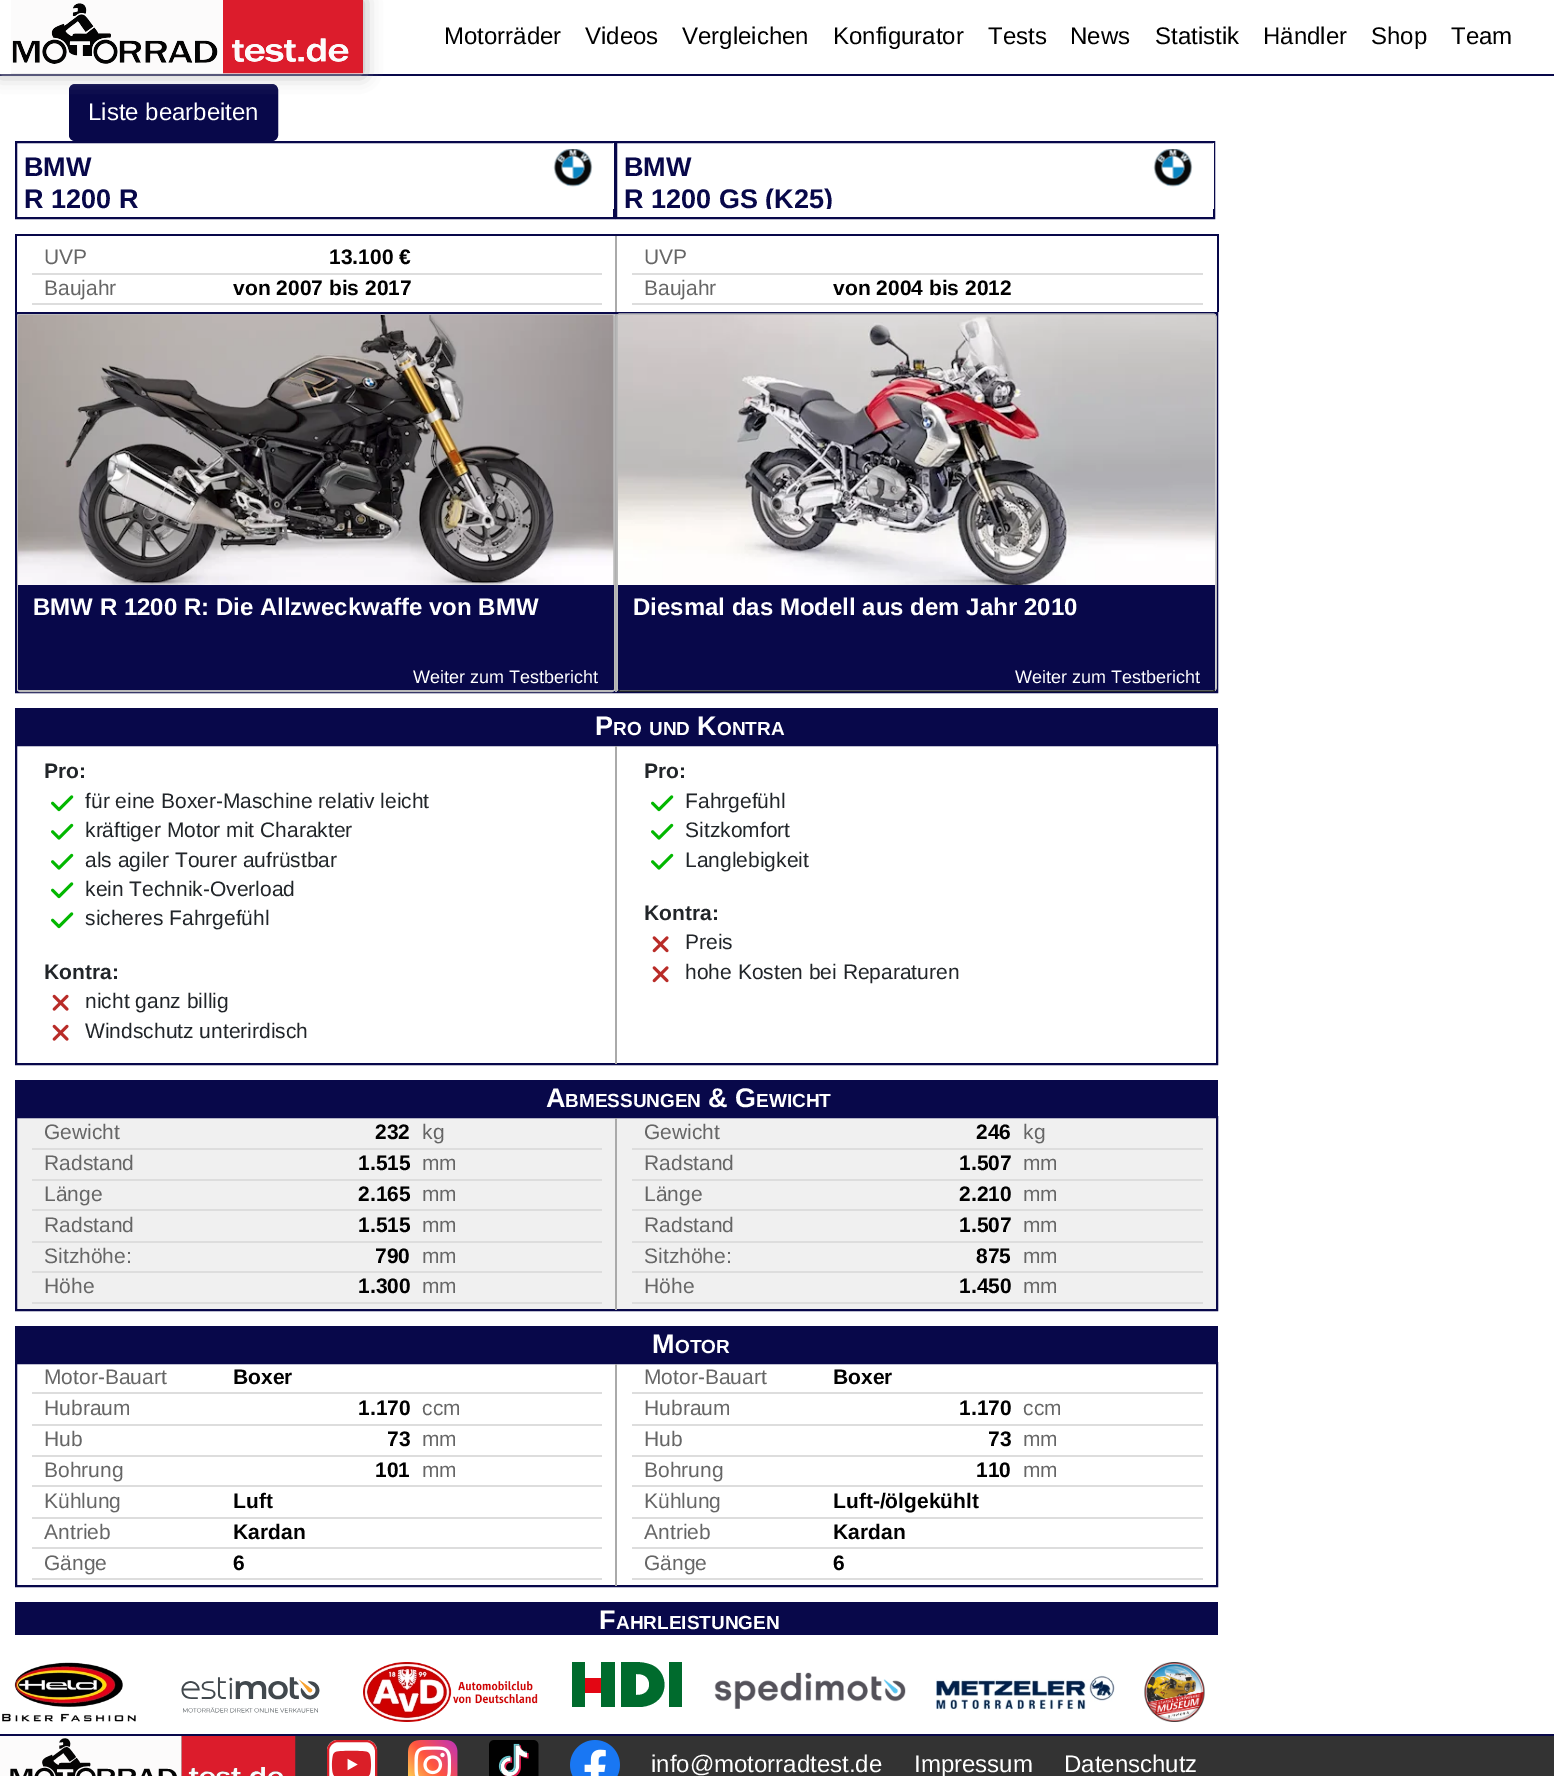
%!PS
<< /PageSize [1554 1776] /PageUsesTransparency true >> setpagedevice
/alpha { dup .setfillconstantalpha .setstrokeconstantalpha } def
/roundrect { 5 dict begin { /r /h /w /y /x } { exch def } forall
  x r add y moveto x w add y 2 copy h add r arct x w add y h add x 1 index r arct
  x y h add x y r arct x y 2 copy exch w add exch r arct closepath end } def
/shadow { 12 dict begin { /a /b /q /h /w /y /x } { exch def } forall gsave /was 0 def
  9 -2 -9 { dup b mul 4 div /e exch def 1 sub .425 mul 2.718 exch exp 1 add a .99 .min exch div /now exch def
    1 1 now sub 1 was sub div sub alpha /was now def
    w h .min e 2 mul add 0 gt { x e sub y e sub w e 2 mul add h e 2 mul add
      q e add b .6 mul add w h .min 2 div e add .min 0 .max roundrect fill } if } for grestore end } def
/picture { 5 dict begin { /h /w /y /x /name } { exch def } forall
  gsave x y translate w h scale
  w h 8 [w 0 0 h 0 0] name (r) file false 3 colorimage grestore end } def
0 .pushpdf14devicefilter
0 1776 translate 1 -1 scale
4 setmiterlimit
1 setgray
0 0 1554 1776 rectfill
0.031 0.031 0.29 setrgbcolor
0 74 1554 2 rectfill
70 85 207 55 5 roundrect gsave fill grestore
2 setlinewidth
stroke
gsave
newpath 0 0 moveto 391 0 lineto 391 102 lineto 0 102 lineto closepath 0 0 moveto 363 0 lineto 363 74 lineto 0 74 lineto closepath eoclip newpath
0.667 setgray
0 0 363 74 0 9 1 shadow
grestore
(img1.rgb) 11 0 352 74 picture
/LiberationSans-Regular [24 0 0 -24 0 0] selectfont
0 setgray
444 44 moveto (Motorräder) show
585 44 moveto (Videos) show
682 44 moveto (Vergleichen) show
833 44 moveto (Konfigurator) show
988 44 moveto (Tests) show
1070 44 moveto (News) show
1155 44 moveto (Statistik) show
1263 44 moveto (Händler) show
1371 44 moveto (Shop) show
1451 44 moveto (Team) show
1 setgray
88 120 moveto (Liste bearbeiten) show
0.031 0.031 0.29 setrgbcolor
16 142 598 76 rectstroke
1 setgray
613 143 1 66 rectfill
/LiberationSans-Bold [27 0 0 -27 0 0] selectfont
0.031 0.031 0.29 setrgbcolor
24 176 moveto (BMW) show
24 208 moveto (R 1200 R) show
(img2.rgb) 553 149 40 38 picture
616 142 598 76 rectstroke
1 setgray
1213 143 1 66 rectfill
0.031 0.031 0.29 setrgbcolor
624 176 moveto (BMW) show
gsave
617 143 597 66 rectclip
624 208 moveto (R 1200 GS \(K25\)) show
grestore
(img2.rgb) 1153 149 40 38 picture
15 234 1203 2 rectfill
1217 234 2 78 rectfill
15 234 2 78 rectfill
0.667 setgray
615 236 2 76 rectfill
/LiberationSans-Regular [21 0 0 -21 0 0] selectfont
0.4 setgray
44 264 moveto (UVP) show
/LiberationSans-Bold [21 0 0 -21 0 0] selectfont
0 setgray
329 264 moveto (13.100 €) show
0.867 setgray
32 273 570 2 rectfill
/LiberationSans-Regular [21 0 0 -21 0 0] selectfont
0.4 setgray
44 295 moveto (Baujahr) show
0.867 setgray
32 303 570 2 rectfill
/LiberationSans-Bold [21 0 0 -21 0 0] selectfont
0 setgray
233 295 moveto (von 2007 bis 2017) show
/LiberationSans-Regular [21 0 0 -21 0 0] selectfont
0.4 setgray
644 264 moveto (UVP) show
0.867 setgray
632 273 571 2 rectfill
0.4 setgray
644 295 moveto (Baujahr) show
0.867 setgray
632 303 571 2 rectfill
/LiberationSans-Bold [21 0 0 -21 0 0] selectfont
0 setgray
833 295 moveto (von 2004 bis 2012) show
0.031 0.031 0.29 setrgbcolor
16 313 1201 379 rectstroke
0.667 setgray
615 314 2 378 rectfill
0.733 setgray
18 315 596 376 2 roundrect stroke
(img3.rgb) 18 315 596 270 picture
0.031 0.031 0.29 setrgbcolor
18 585 596 80 rectfill
/LiberationSans-Bold [24 0 0 -24 0 0] selectfont
1 setgray
33 615 moveto (BMW R 1200 R: Die Allzweckwaffe von BMW) show
0.031 0.031 0.29 setrgbcolor
newpath 18 665 moveto 614 665 lineto 614 688.5 lineto 614 689.5 613.5 690 612.5 690 curveto 19.5 690 lineto 18.5 690 18 689.5 18 688.5 curveto closepath fill
/LiberationSans-Regular [18 0 0 -18 0 0] selectfont
1 setgray
413 683 moveto (Weiter zum Testbericht) show
0.129 0.145 0.161 setrgbcolor
1.5 setlinewidth
newpath 1215 690 moveto 1213.5 691 lineto 619.5 691 lineto 618 690 lineto stroke
0.733 setgray
newpath 618 690 moveto 617 688.5 lineto 617 316.5 lineto 618 315 lineto 619.5 314 lineto 1213.5 314 lineto 1215 315 lineto 1216 316.5 lineto 1216 688.5 lineto 1215 690 lineto stroke
(img4.rgb) 618 315 597 270 picture
0.031 0.031 0.29 setrgbcolor
618 585 597 80 rectfill
/LiberationSans-Bold [24 0 0 -24 0 0] selectfont
1 setgray
633 615 moveto (Diesmal das Modell aus dem Jahr 2010) show
0.031 0.031 0.29 setrgbcolor
newpath 618 665 moveto 1215 665 lineto 1215 688.5 lineto 1215 689.5 1214.5 690 1213.5 690 curveto 619.5 690 lineto 618.5 690 618 689.5 618 688.5 curveto closepath fill
/LiberationSans-Regular [18 0 0 -18 0 0] selectfont
1 setgray
1015 683 moveto (Weiter zum Testbericht) show
0.031 0.031 0.29 setrgbcolor
15 708 1203 36 rectfill
/LiberationSans-Bold [27 0 0 -27 0 0] selectfont
1 setgray
595 735 moveto (P) show
/LiberationSans-Bold [19 0 0 -19 0 0] selectfont
613 735 moveto (RO) show
649 735 moveto (UND) show
/LiberationSans-Bold [27 0 0 -27 0 0] selectfont
697 735 moveto (K) show
/LiberationSans-Bold [19 0 0 -19 0 0] selectfont
717 735 moveto (ONTRA) show
0.031 0.031 0.29 setrgbcolor
2 setlinewidth
16 745 1201 319 rectstroke
0.667 setgray
615 746 2 318 rectfill
/LiberationSans-Bold [21 0 0 -21 0 0] selectfont
0.129 0.145 0.161 setrgbcolor
44 778 moveto (Pro:) show
(img5.rgb) 51 795 23 17 picture
/LiberationSans-Regular [21 0 0 -21 0 0] selectfont
85 808 moveto (für eine Boxer-Maschine relativ leicht) show
(img6.rgb) 51 823 23 17 picture
85 837 moveto (kräftiger Motor mit Charakter) show
(img6.rgb) 51 853 23 17 picture
85 867 moveto (als agiler Tourer aufrüstbar) show
(img5.rgb) 51 882 23 17 picture
85 896 moveto (kein Technik-Overload) show
(img5.rgb) 51 912 23 17 picture
85 925 moveto (sicheres Fahrgefühl) show
/LiberationSans-Bold [21 0 0 -21 0 0] selectfont
44 979 moveto (Kontra:) show
(img7.rgb) 52 994 17 17 picture
/LiberationSans-Regular [21 0 0 -21 0 0] selectfont
85 1008 moveto (nicht ganz billig) show
(img7.rgb) 52 1024 17 17 picture
85 1038 moveto (Windschutz unterirdisch) show
/LiberationSans-Bold [21 0 0 -21 0 0] selectfont
644 778 moveto (Pro:) show
(img5.rgb) 651 795 23 17 picture
/LiberationSans-Regular [21 0 0 -21 0 0] selectfont
685 808 moveto (Fahrgefühl) show
(img6.rgb) 651 823 23 17 picture
685 837 moveto (Sitzkomfort) show
(img6.rgb) 651 853 23 17 picture
685 867 moveto (Langlebigkeit) show
/LiberationSans-Bold [21 0 0 -21 0 0] selectfont
644 920 moveto (Kontra:) show
(img8.rgb) 652 936 17 17 picture
/LiberationSans-Regular [21 0 0 -21 0 0] selectfont
685 949 moveto (Preis) show
(img8.rgb) 652 966 17 17 picture
685 979 moveto (hohe Kosten bei Reparaturen) show
0.031 0.031 0.29 setrgbcolor
15 1080 1203 36 rectfill
/LiberationSans-Bold [27 0 0 -27 0 0] selectfont
1 setgray
546 1107 moveto (A) show
/LiberationSans-Bold [19 0 0 -19 0 0] selectfont
565 1107 moveto (BMESSUNGEN) show
/LiberationSans-Bold [27 0 0 -27 0 0] selectfont
708 1107 moveto (& G) show
/LiberationSans-Bold [19 0 0 -19 0 0] selectfont
756 1107 moveto (EWICHT) show
0.941 setgray
newpath 16 1117 moveto 1217 1117 lineto 1217 1310 lineto 16 1310 lineto closepath gsave fill grestore
0.031 0.031 0.29 setrgbcolor
stroke
0.667 setgray
615 1118 2 192 rectfill
/LiberationSans-Regular [21 0 0 -21 0 0] selectfont
0.4 setgray
44 1139 moveto (Gewicht) show
/LiberationSans-Bold [21 0 0 -21 0 0] selectfont
0 setgray
375 1139 moveto (232) show
0.867 setgray
32 1148 570 2 rectfill
/LiberationSans-Regular [21 0 0 -21 0 0] selectfont
0.4 setgray
422 1139 moveto (kg) show
44 1170 moveto (Radstand) show
/LiberationSans-Bold [21 0 0 -21 0 0] selectfont
0 setgray
358 1170 moveto (1.515) show
0.867 setgray
32 1179 570 2 rectfill
/LiberationSans-Regular [21 0 0 -21 0 0] selectfont
0.4 setgray
422 1170 moveto (mm) show
44 1201 moveto (Länge) show
/LiberationSans-Bold [21 0 0 -21 0 0] selectfont
0 setgray
358 1201 moveto (2.165) show
0.867 setgray
32 1209 570 2 rectfill
/LiberationSans-Regular [21 0 0 -21 0 0] selectfont
0.4 setgray
422 1201 moveto (mm) show
44 1232 moveto (Radstand) show
/LiberationSans-Bold [21 0 0 -21 0 0] selectfont
0 setgray
358 1232 moveto (1.515) show
0.867 setgray
32 1241 570 2 rectfill
/LiberationSans-Regular [21 0 0 -21 0 0] selectfont
0.4 setgray
422 1232 moveto (mm) show
44 1263 moveto (Sitzhöhe:) show
/LiberationSans-Bold [21 0 0 -21 0 0] selectfont
0 setgray
375 1263 moveto (790) show
0.867 setgray
32 1271 570 2 rectfill
/LiberationSans-Regular [21 0 0 -21 0 0] selectfont
0.4 setgray
422 1263 moveto (mm) show
44 1293 moveto (Höhe) show
/LiberationSans-Bold [21 0 0 -21 0 0] selectfont
0 setgray
358 1293 moveto (1.300) show
0.867 setgray
32 1302 570 2 rectfill
/LiberationSans-Regular [21 0 0 -21 0 0] selectfont
0.4 setgray
422 1293 moveto (mm) show
644 1139 moveto (Gewicht) show
/LiberationSans-Bold [21 0 0 -21 0 0] selectfont
0 setgray
976 1139 moveto (246) show
0.867 setgray
632 1148 571 2 rectfill
/LiberationSans-Regular [21 0 0 -21 0 0] selectfont
0.4 setgray
1023 1139 moveto (kg) show
644 1170 moveto (Radstand) show
/LiberationSans-Bold [21 0 0 -21 0 0] selectfont
0 setgray
959 1170 moveto (1.507) show
0.867 setgray
632 1179 571 2 rectfill
/LiberationSans-Regular [21 0 0 -21 0 0] selectfont
0.4 setgray
1023 1170 moveto (mm) show
644 1201 moveto (Länge) show
/LiberationSans-Bold [21 0 0 -21 0 0] selectfont
0 setgray
959 1201 moveto (2.210) show
0.867 setgray
632 1209 571 2 rectfill
/LiberationSans-Regular [21 0 0 -21 0 0] selectfont
0.4 setgray
1023 1201 moveto (mm) show
644 1232 moveto (Radstand) show
/LiberationSans-Bold [21 0 0 -21 0 0] selectfont
0 setgray
959 1232 moveto (1.507) show
0.867 setgray
632 1241 571 2 rectfill
/LiberationSans-Regular [21 0 0 -21 0 0] selectfont
0.4 setgray
1023 1232 moveto (mm) show
644 1263 moveto (Sitzhöhe:) show
/LiberationSans-Bold [21 0 0 -21 0 0] selectfont
0 setgray
976 1263 moveto (875) show
0.867 setgray
632 1271 571 2 rectfill
/LiberationSans-Regular [21 0 0 -21 0 0] selectfont
0.4 setgray
1023 1263 moveto (mm) show
644 1293 moveto (Höhe) show
/LiberationSans-Bold [21 0 0 -21 0 0] selectfont
0 setgray
959 1293 moveto (1.450) show
0.867 setgray
632 1302 571 2 rectfill
/LiberationSans-Regular [21 0 0 -21 0 0] selectfont
0.4 setgray
1023 1293 moveto (mm) show
0.031 0.031 0.29 setrgbcolor
15 1326 1203 36 rectfill
/LiberationSans-Bold [27 0 0 -27 0 0] selectfont
1 setgray
652 1353 moveto (M) show
/LiberationSans-Bold [19 0 0 -19 0 0] selectfont
675 1353 moveto (OTOR) show
0.031 0.031 0.29 setrgbcolor
16 1363 1201 223 rectstroke
0.667 setgray
615 1364 2 222 rectfill
/LiberationSans-Regular [21 0 0 -21 0 0] selectfont
0.4 setgray
44 1384 moveto (Motor-Bauart) show
0.867 setgray
32 1392 570 2 rectfill
/LiberationSans-Bold [21 0 0 -21 0 0] selectfont
0 setgray
233 1384 moveto (Boxer) show
/LiberationSans-Regular [21 0 0 -21 0 0] selectfont
0.4 setgray
44 1415 moveto (Hubraum) show
/LiberationSans-Bold [21 0 0 -21 0 0] selectfont
0 setgray
358 1415 moveto (1.170) show
0.867 setgray
32 1424 570 2 rectfill
/LiberationSans-Regular [21 0 0 -21 0 0] selectfont
0.4 setgray
422 1415 moveto (ccm) show
44 1446 moveto (Hub) show
/LiberationSans-Bold [21 0 0 -21 0 0] selectfont
0 setgray
387 1446 moveto (73) show
0.867 setgray
32 1455 570 2 rectfill
/LiberationSans-Regular [21 0 0 -21 0 0] selectfont
0.4 setgray
422 1446 moveto (mm) show
44 1477 moveto (Bohrung) show
/LiberationSans-Bold [21 0 0 -21 0 0] selectfont
0 setgray
375 1477 moveto (101) show
0.867 setgray
32 1485 570 2 rectfill
/LiberationSans-Regular [21 0 0 -21 0 0] selectfont
0.4 setgray
422 1477 moveto (mm) show
44 1508 moveto (Kühlung) show
0.867 setgray
32 1517 570 2 rectfill
/LiberationSans-Bold [21 0 0 -21 0 0] selectfont
0 setgray
233 1508 moveto (Luft) show
/LiberationSans-Regular [21 0 0 -21 0 0] selectfont
0.4 setgray
44 1539 moveto (Antrieb) show
0.867 setgray
32 1547 570 2 rectfill
/LiberationSans-Bold [21 0 0 -21 0 0] selectfont
0 setgray
233 1539 moveto (Kardan) show
/LiberationSans-Regular [21 0 0 -21 0 0] selectfont
0.4 setgray
44 1570 moveto (Gänge) show
0.867 setgray
32 1578 570 2 rectfill
/LiberationSans-Bold [21 0 0 -21 0 0] selectfont
0 setgray
233 1570 moveto (6) show
/LiberationSans-Regular [21 0 0 -21 0 0] selectfont
0.4 setgray
644 1384 moveto (Motor-Bauart) show
0.867 setgray
632 1392 571 2 rectfill
/LiberationSans-Bold [21 0 0 -21 0 0] selectfont
0 setgray
833 1384 moveto (Boxer) show
/LiberationSans-Regular [21 0 0 -21 0 0] selectfont
0.4 setgray
644 1415 moveto (Hubraum) show
/LiberationSans-Bold [21 0 0 -21 0 0] selectfont
0 setgray
959 1415 moveto (1.170) show
0.867 setgray
632 1424 571 2 rectfill
/LiberationSans-Regular [21 0 0 -21 0 0] selectfont
0.4 setgray
1023 1415 moveto (ccm) show
644 1446 moveto (Hub) show
/LiberationSans-Bold [21 0 0 -21 0 0] selectfont
0 setgray
988 1446 moveto (73) show
0.867 setgray
632 1455 571 2 rectfill
/LiberationSans-Regular [21 0 0 -21 0 0] selectfont
0.4 setgray
1023 1446 moveto (mm) show
644 1477 moveto (Bohrung) show
/LiberationSans-Bold [21 0 0 -21 0 0] selectfont
0 setgray
976 1477 moveto (110) show
0.867 setgray
632 1485 571 2 rectfill
/LiberationSans-Regular [21 0 0 -21 0 0] selectfont
0.4 setgray
1023 1477 moveto (mm) show
644 1508 moveto (Kühlung) show
0.867 setgray
632 1517 571 2 rectfill
/LiberationSans-Bold [21 0 0 -21 0 0] selectfont
0 setgray
833 1508 moveto (Luft-/ölgekühlt) show
/LiberationSans-Regular [21 0 0 -21 0 0] selectfont
0.4 setgray
644 1539 moveto (Antrieb) show
0.867 setgray
632 1547 571 2 rectfill
/LiberationSans-Bold [21 0 0 -21 0 0] selectfont
0 setgray
833 1539 moveto (Kardan) show
/LiberationSans-Regular [21 0 0 -21 0 0] selectfont
0.4 setgray
644 1570 moveto (Gänge) show
0.867 setgray
632 1578 571 2 rectfill
/LiberationSans-Bold [21 0 0 -21 0 0] selectfont
0 setgray
833 1570 moveto (6) show
0.031 0.031 0.29 setrgbcolor
15 1602 1203 33 rectfill
/LiberationSans-Bold [27 0 0 -27 0 0] selectfont
1 setgray
599 1629 moveto (F) show
/LiberationSans-Bold [19 0 0 -19 0 0] selectfont
616 1629 moveto (AHRLEISTUNGEN) show
(img9.rgb) 2 1662 134 60 picture
(img10.rgb) 181 1677 139 36 picture
(img11.rgb) 363 1662 175 60 picture
0 0.42 0.176 setrgbcolor
572 1662 13 45 rectfill
0.89 0.024 0.075 setrgbcolor
585 1678 16 15 rectfill
0 0.42 0.176 setrgbcolor
601 1662 14 45 rectfill
gsave
572 1662 111 45 rectclip
newpath 636 1695 moveto 636 1674 lineto 639 1674 642 1674 645 1676 curveto 650 1679 651 1688 646 1692 curveto 643 1695 639 1695 636 1695 curveto closepath 621 1707 moveto 631 1707 644 1709 654 1703 curveto 670 1694 667 1669 649 1664 curveto 640 1661 630 1662 621 1662 curveto closepath fill
grestore
669 1662 13 45 rectfill
(img12.rgb) 714 1672 192 37 picture
(img13.rgb) 936 1675 179 35 picture
(img14.rgb) 1144 1662 61 60 picture
0.2 setgray
10 1736 1544 40 rectfill
0.031 0.031 0.29 setrgbcolor
0 1734 1554 2 rectfill
(img15.rgb) 0 1736 296 40 picture
1 setgray
327 1740 50 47 11 roundrect fill
(img16.rgb) 331 1750 41 26 picture
0.855 0.122 0.157 setrgbcolor
328 1741 48 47 10 roundrect stroke
(img17.rgb) 408 1740 50 36 picture
(img18.rgb) 489 1740 50 36 picture
(img19.rgb) 570 1740 50 36 picture
/LiberationSans-Regular [24 0 0 -24 0 0] selectfont
1 setgray
651 1772 moveto (info@motorradtest.de) show
914 1772 moveto (Impressum) show
1064 1772 moveto (Datenschutz) show
.poppdf14devicefilter showpage
